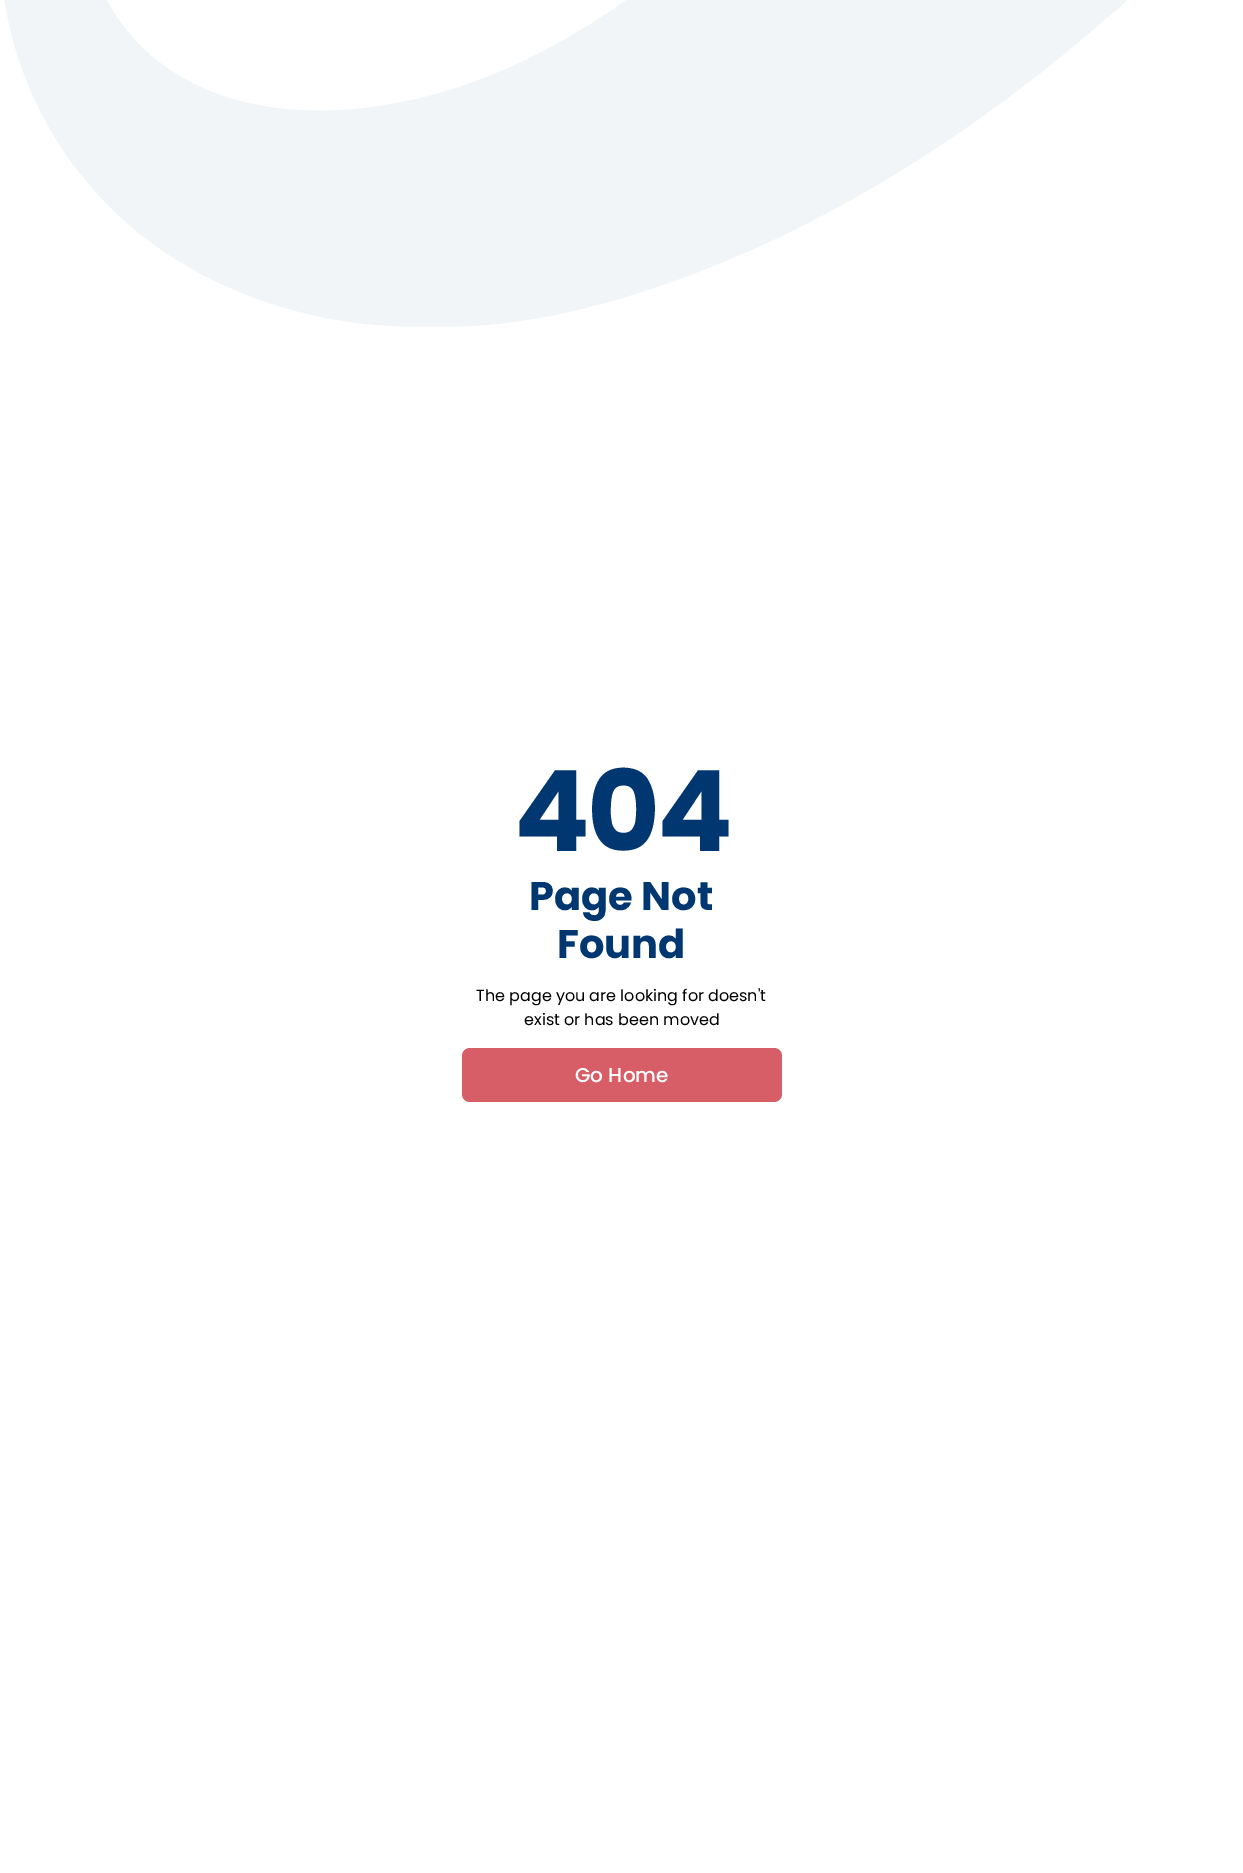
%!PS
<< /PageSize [1243 1873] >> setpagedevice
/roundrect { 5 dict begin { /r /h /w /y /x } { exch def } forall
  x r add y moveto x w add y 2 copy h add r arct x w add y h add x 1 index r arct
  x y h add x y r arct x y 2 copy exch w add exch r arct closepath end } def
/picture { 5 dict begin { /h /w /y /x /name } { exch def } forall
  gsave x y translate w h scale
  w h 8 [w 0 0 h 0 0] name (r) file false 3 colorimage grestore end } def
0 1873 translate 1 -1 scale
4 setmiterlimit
1 setgray
0 0 1243 1873 rectfill
(img1.rgb) 4 0 1123 327 picture
/Poppins-Bold [112 0 0 -112 0 0] selectfont
0 0.216 0.439 setrgbcolor
514 851 moveto -3 0 (404) ashow
/Poppins-Bold [40 0 0 -40 0 0] selectfont
529 910 moveto (Page Not) show
557 958 moveto (Found) show
/Poppins-Regular [16 0 0 -16 0 0] selectfont
0 setgray
476 1001 moveto (The page you are looking for doesn't) show
524 1025 moveto (exist or has been moved) show
0.843 0.369 0.404 setrgbcolor
462 1048 320 54 8 roundrect fill
/Poppins-Medium [20 0 0 -20 0 0] selectfont
1 setgray
575 1082 moveto (Go Home) show
showpage
